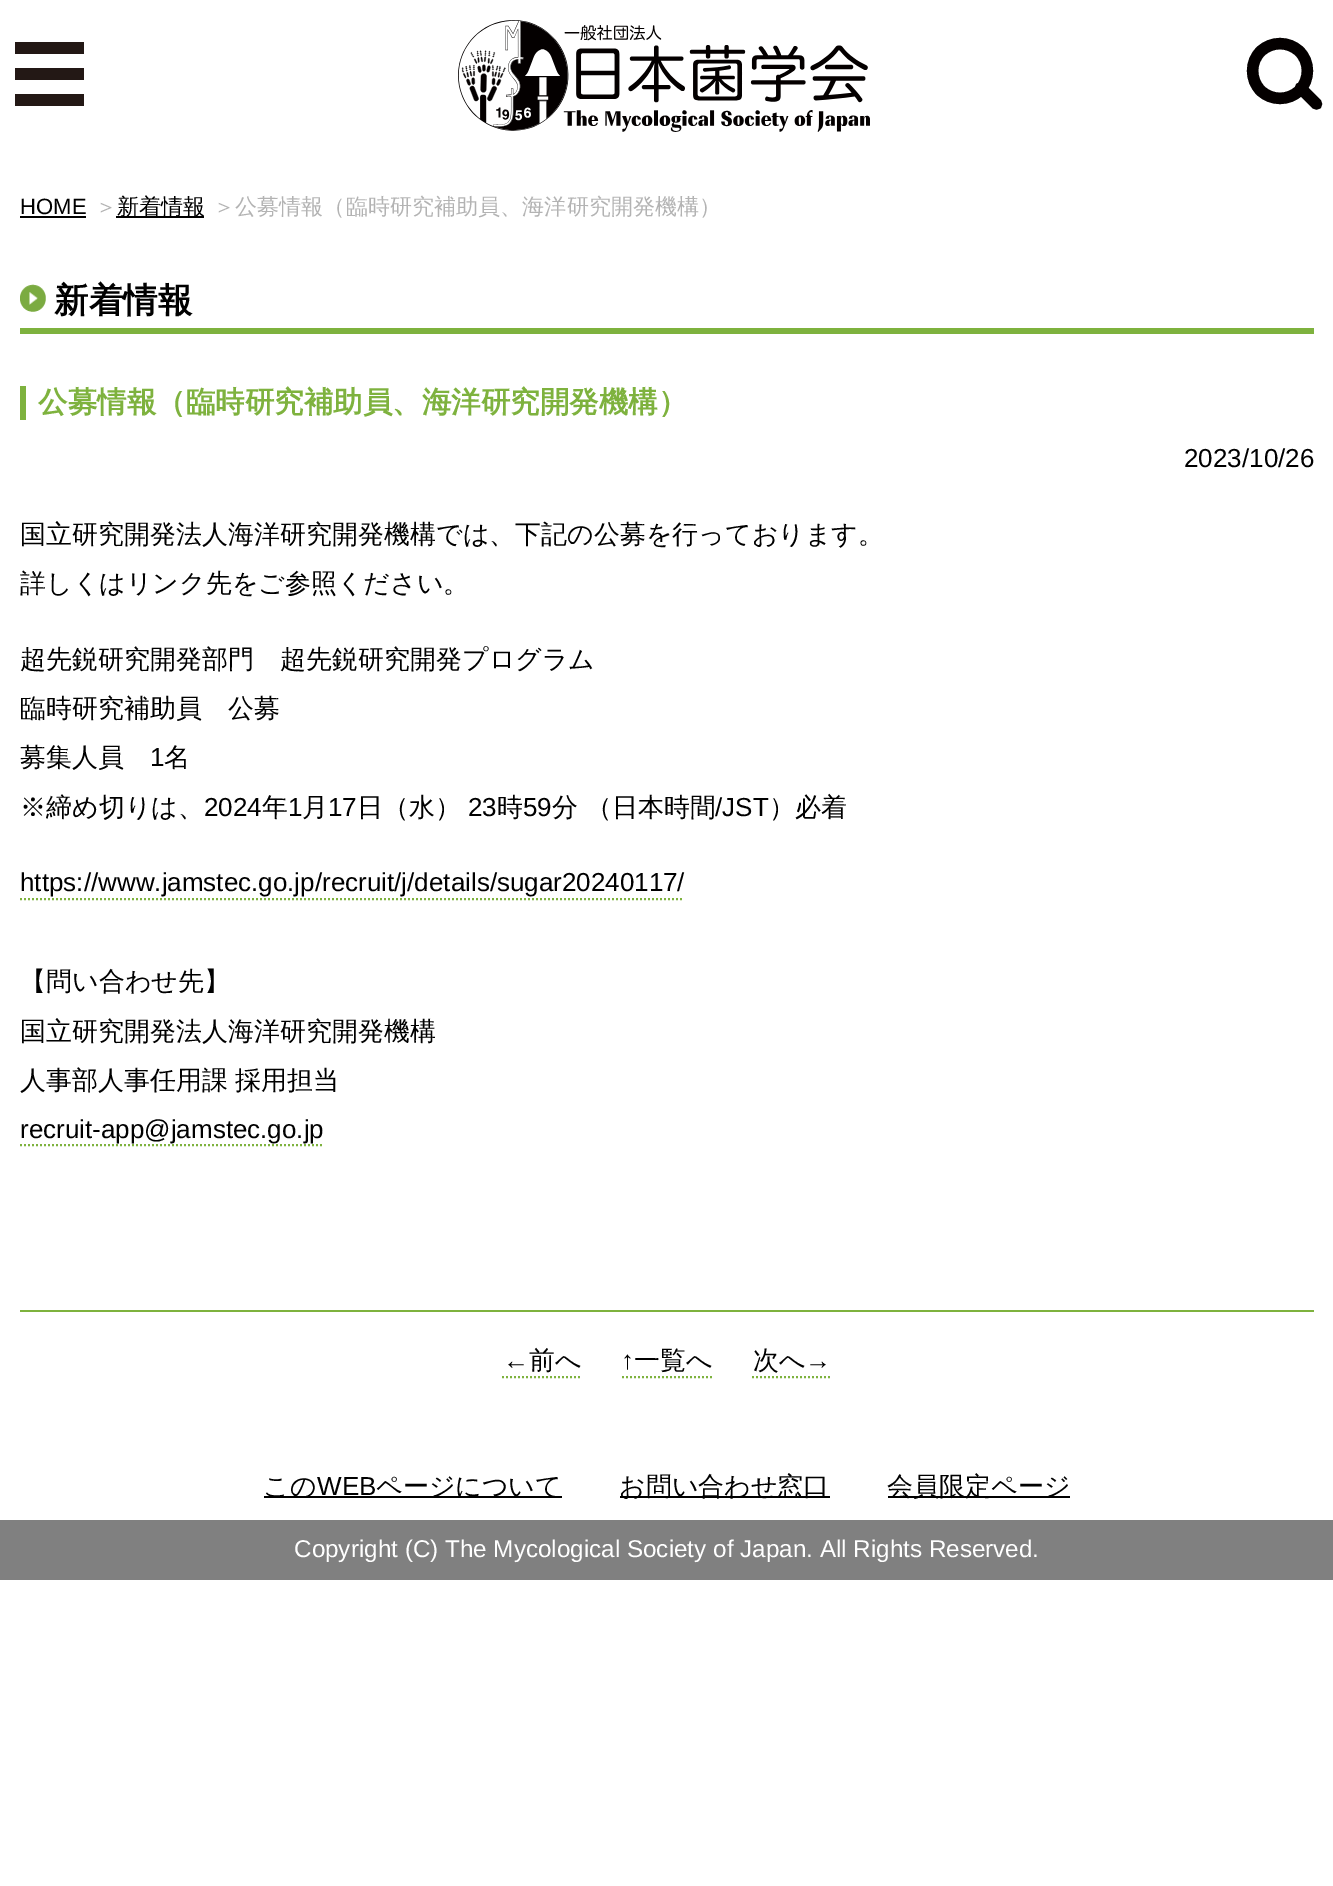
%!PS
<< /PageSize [1333 1886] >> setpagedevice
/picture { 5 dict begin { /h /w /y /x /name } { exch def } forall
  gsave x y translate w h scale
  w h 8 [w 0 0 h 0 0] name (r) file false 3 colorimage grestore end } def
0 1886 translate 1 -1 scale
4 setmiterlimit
1 setgray
0 0 1333 1886 rectfill
(img1.rgb) 458 20 412 112 picture
0.137 0.094 0.082 setrgbcolor
15 42 69 12 rectfill
15 68 69 12 rectfill
15 94 69 12 rectfill
0.016 0 0 setrgbcolor
11.4 setlinewidth
1 setlinecap
newpath 1299.5 51.5 moveto 1310 62 1310 79.5 1299.5 90.5 curveto 1288.5 101 1271.5 101 1260.5 90.5 curveto 1250 79.5 1250 62 1260.5 51.5 curveto 1271.5 41 1288.5 41 1299.5 51.5 curveto closepath stroke
newpath 1300.5 88 moveto 1316.5 104 lineto stroke
/LiberationSans-Regular [22.1 0 0 -22.1 0 0] selectfont
0 setgray
20 214 moveto (HOME) show
20 216 66 2 rectfill
/WenQuanYiZenHei-Medium [22.1 0 0 -22.1 0 0] selectfont
0.702 setgray
95 214 moveto (＞) show
0 setgray
116 216 88 2 rectfill
117 214 moveto (新着情報) show
0.702 setgray
213 214 moveto (＞公募情報（臨時研究補助員、海洋研究開発機構）) show
0.494 0.698 0.243 setrgbcolor
20 328 1294 6 rectfill
(img2.rgb) 20 284 26 28 picture
/WenQuanYiZenHei-Bold [34.5 0 0 -34.5 0 0] selectfont
0 setgray
54 312 moveto (新着情報) show
0.494 0.698 0.243 setrgbcolor
20 386 6 34 rectfill
/WenQuanYiZenHei-Bold [29.5 0 0 -29.5 0 0] selectfont
38 412 moveto (公募情報（臨時研究補助員、海洋研究開発機構）) show
/LiberationSans-Regular [26 0 0 -26 0 0] selectfont
0 setgray
1184 467 moveto (2023/10/26) show
/WenQuanYiZenHei-Medium [26 0 0 -26 0 0] selectfont
20 543 moveto (国立研究開発法人海洋研究開発機構では、下記の公募を行っております。) show
20 592 moveto (詳しくはリンク先をご参照ください。) show
20 668 moveto (超先鋭研究開発部門　超先鋭研究開発プログラム) show
20 717 moveto (臨時研究補助員　公募) show
20 766 moveto (募集人員) show
/LiberationSans-Regular [26 0 0 -26 0 0] selectfont
150 766 moveto (1) show
/WenQuanYiZenHei-Medium [26 0 0 -26 0 0] selectfont
164 766 moveto (名) show
20 816 moveto (※締め切りは、) show
/LiberationSans-Regular [26 0 0 -26 0 0] selectfont
204 816 moveto (2024) show
/WenQuanYiZenHei-Medium [26 0 0 -26 0 0] selectfont
262 816 moveto (年) show
/LiberationSans-Regular [26 0 0 -26 0 0] selectfont
288 816 moveto (1) show
/WenQuanYiZenHei-Medium [26 0 0 -26 0 0] selectfont
302 816 moveto (月) show
/LiberationSans-Regular [26 0 0 -26 0 0] selectfont
328 816 moveto (17) show
/WenQuanYiZenHei-Medium [26 0 0 -26 0 0] selectfont
357 816 moveto (日（水）) show
/LiberationSans-Regular [26 0 0 -26 0 0] selectfont
468 816 moveto (23) show
/WenQuanYiZenHei-Medium [26 0 0 -26 0 0] selectfont
497 816 moveto (時) show
/LiberationSans-Regular [26 0 0 -26 0 0] selectfont
523 816 moveto (59) show
/WenQuanYiZenHei-Medium [26 0 0 -26 0 0] selectfont
552 816 moveto (分 （日本時間) show
/LiberationSans-Regular [26 0 0 -26 0 0] selectfont
715 816 moveto (/JST) show
/WenQuanYiZenHei-Medium [26 0 0 -26 0 0] selectfont
769 816 moveto (）必着) show
/LiberationSans-Regular [26 0 0 -26 0 0] selectfont
20 891 moveto (https://www.jamstec.go.jp/recruit/j/details/sugar20240117/) show
0.494 0.698 0.243 setrgbcolor
2 setlinewidth
0 setlinecap
[2 2] 0 setdash
newpath 20 899 moveto 684 899 lineto stroke
/WenQuanYiZenHei-Medium [26 0 0 -26 0 0] selectfont
0 setgray
20 990 moveto (【問い合わせ先】) show
20 1040 moveto (国立研究開発法人海洋研究開発機構) show
20 1089 moveto -1 0 32 (人事部人事任用課 採用担当) widthshow
/LiberationSans-Regular [26 0 0 -26 0 0] selectfont
20 1138 moveto (recruit-app@jamstec.go.jp) show
0.494 0.698 0.243 setrgbcolor
newpath 20 1145 moveto 324 1145 lineto stroke
20 1310 1294 2 rectfill
0 setgray
503 1369 moveto (←) show
0.494 0.698 0.243 setrgbcolor
newpath 502 1377 moveto 582 1377 lineto stroke
/WenQuanYiZenHei-Medium [26 0 0 -26 0 0] selectfont
0 setgray
529 1369 moveto (前へ) show
/LiberationSans-Regular [26 0 0 -26 0 0] selectfont
621 1369 moveto (↑) show
0.494 0.698 0.243 setrgbcolor
newpath 622 1377 moveto 712 1377 lineto stroke
/WenQuanYiZenHei-Medium [26 0 0 -26 0 0] selectfont
0 setgray
634 1369 moveto (一覧へ) show
753 1369 moveto (次へ) show
/LiberationSans-Regular [26 0 0 -26 0 0] selectfont
805 1369 moveto (→) show
0.494 0.698 0.243 setrgbcolor
newpath 752 1377 moveto 832 1377 lineto stroke
0 setgray
264 1496 298 2 rectfill
/WenQuanYiZenHei-Medium [26 0 0 -26 0 0] selectfont
263 1495 moveto (この) show
/LiberationSans-Regular [26 0 0 -26 0 0] selectfont
317 1495 moveto (WEB) show
/WenQuanYiZenHei-Medium [26 0 0 -26 0 0] selectfont
376 1495 moveto (ページについて) show
620 1496 210 2 rectfill
619 1495 moveto (お問い合わせ窓口) show
888 1496 182 2 rectfill
887 1495 moveto (会員限定ページ) show
0.502 setgray
0 1520 1333 60 rectfill
/LiberationSans-Regular [24.25 0 0 -24.25 0 0] selectfont
1 setgray
294 1557 moveto (Copyright \(C\) The Mycological Society of Japan. All Rights Reserved.) show
showpage
